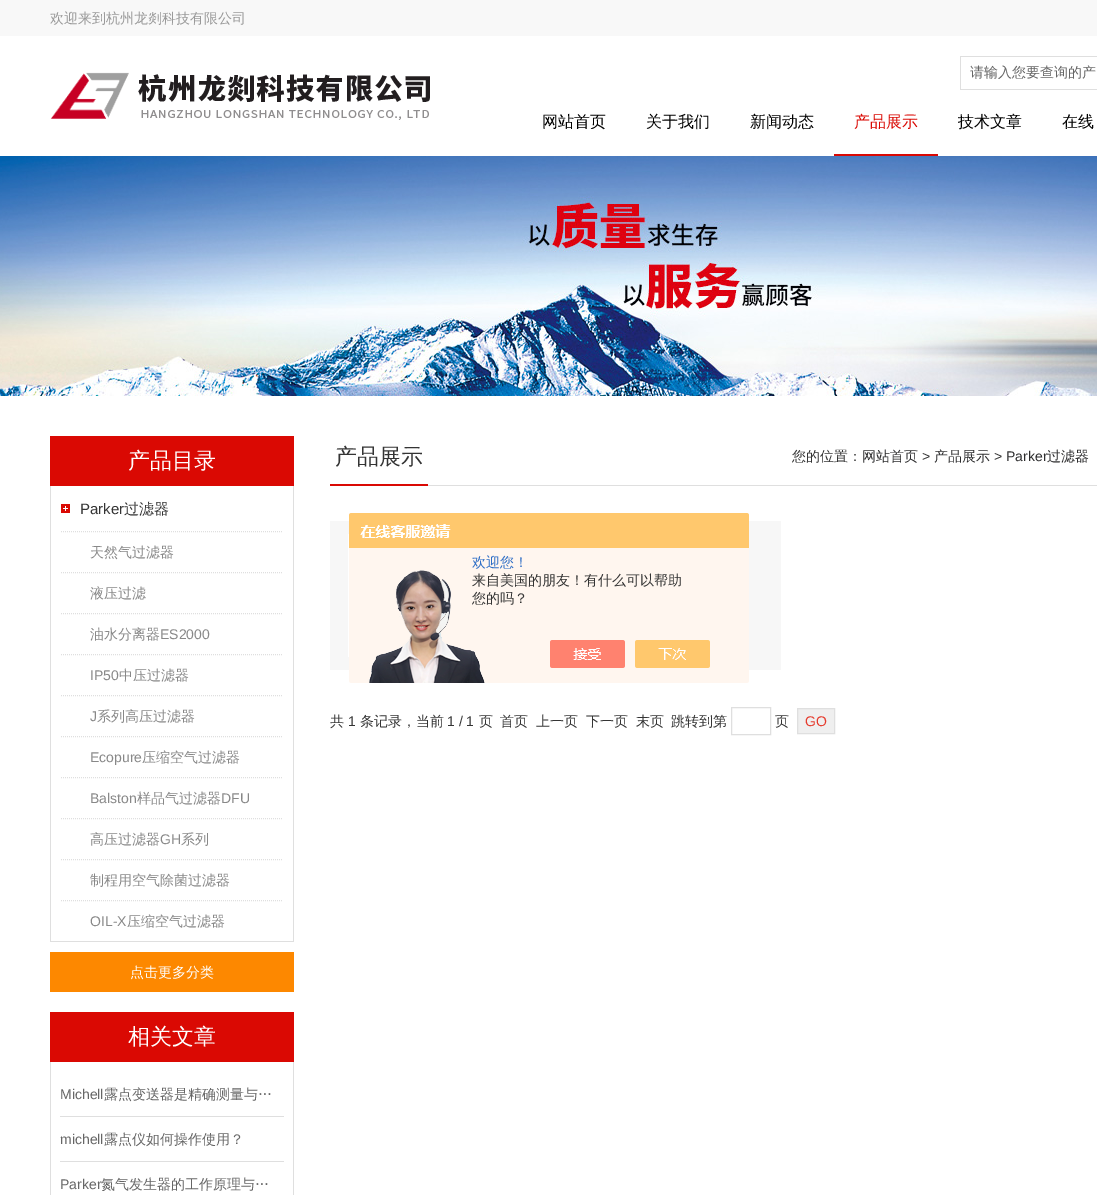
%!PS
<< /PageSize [1097 1195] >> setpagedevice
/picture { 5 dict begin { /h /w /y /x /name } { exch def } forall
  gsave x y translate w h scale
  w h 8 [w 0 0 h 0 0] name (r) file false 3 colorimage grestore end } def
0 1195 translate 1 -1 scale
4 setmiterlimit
1 setgray
0 0 1097 1195 rectfill
0.973 setgray
0 0 1097 36 rectfill
/WenQuanYiZenHei-Medium [14 0 0 -14 0 0] selectfont
0.6 setgray
50 23 moveto (欢迎来到杭州龙剡科技有限公司) show
(img1.rgb) 50 72 380 48 picture
0.875 setgray
960 56 137 1 rectfill
960 89 137 1 rectfill
960 56 1 34 rectfill
0.4 setgray
970 77 moveto (请输入您要查询的产) show
/WenQuanYiZenHei-Medium [16 0 0 -16 0 0] selectfont
0.004 setgray
542 127 moveto (网站首页) show
646 127 moveto (关于我们) show
750 127 moveto (新闻动态) show
0.855 0.035 0.016 setrgbcolor
834 154 104 2 rectfill
0.855 0.035 0.012 setrgbcolor
854 127 moveto (产品展示) show
0.004 setgray
958 127 moveto (技术文章) show
1062 127 moveto (在线) show
(img2.rgb) 0 156 1097 240 picture
0.855 0.035 0.012 setrgbcolor
50 436 244 50 rectfill
/WenQuanYiZenHei-Medium [22 0 0 -22 0 0] selectfont
1 setgray
128 468 moveto (产品目录) show
0.875 setgray
293 486 1 456 rectfill
50 941 244 1 rectfill
50 486 1 456 rectfill
(img3.rgb) 61 504 9 9 picture
/LiberationSans-Regular [15 0 0 -15 0 0] selectfont
0.204 setgray
80 514 moveto (Parker) show
/WenQuanYiZenHei-Medium [15 0 0 -15 0 0] selectfont
124 514 moveto (过滤器) show
0.875 setgray
[1 1] 0 setdash
newpath 61 531.5 moveto 283 531.5 lineto stroke
/WenQuanYiZenHei-Medium [14 0 0 -14 0 0] selectfont
0.533 setgray
90 557 moveto (天然气过滤器) show
0.875 setgray
newpath 61 572.5 moveto 283 572.5 lineto stroke
0.533 setgray
90 598 moveto (液压过滤) show
0.875 setgray
newpath 61 613.5 moveto 283 613.5 lineto stroke
0.533 setgray
90 639 moveto (油水分离器) show
/LiberationSans-Regular [14 0 0 -14 0 0] selectfont
160 639 moveto (ES2000) show
0.875 setgray
newpath 61 654.5 moveto 283 654.5 lineto stroke
0.533 setgray
90 680 moveto (IP50) show
/WenQuanYiZenHei-Medium [14 0 0 -14 0 0] selectfont
119 680 moveto (中压过滤器) show
0.875 setgray
newpath 61 695.5 moveto 283 695.5 lineto stroke
/LiberationSans-Regular [14 0 0 -14 0 0] selectfont
0.533 setgray
90 721 moveto (J) show
/WenQuanYiZenHei-Medium [14 0 0 -14 0 0] selectfont
97 721 moveto (系列高压过滤器) show
0.875 setgray
newpath 61 736.5 moveto 283 736.5 lineto stroke
/LiberationSans-Regular [14 0 0 -14 0 0] selectfont
0.533 setgray
90 762 moveto (Ecopure) show
/WenQuanYiZenHei-Medium [14 0 0 -14 0 0] selectfont
142 762 moveto (压缩空气过滤器) show
0.875 setgray
newpath 61 777.5 moveto 283 777.5 lineto stroke
/LiberationSans-Regular [14 0 0 -14 0 0] selectfont
0.533 setgray
90 803 moveto (Balston) show
/WenQuanYiZenHei-Medium [14 0 0 -14 0 0] selectfont
137 803 moveto (样品气过滤器) show
/LiberationSans-Regular [14 0 0 -14 0 0] selectfont
221 803 moveto (DFU) show
0.875 setgray
newpath 61 818.5 moveto 283 818.5 lineto stroke
/WenQuanYiZenHei-Medium [14 0 0 -14 0 0] selectfont
0.533 setgray
90 844 moveto (高压过滤器) show
/LiberationSans-Regular [14 0 0 -14 0 0] selectfont
160 844 moveto (GH) show
/WenQuanYiZenHei-Medium [14 0 0 -14 0 0] selectfont
181 844 moveto (系列) show
0.875 setgray
newpath 61 859.5 moveto 283 859.5 lineto stroke
0.533 setgray
90 885 moveto (制程用空气除菌过滤器) show
0.875 setgray
newpath 61 900.5 moveto 283 900.5 lineto stroke
/LiberationSans-Regular [14 0 0 -14 0 0] selectfont
0.533 setgray
90 926 moveto (OIL-X) show
/WenQuanYiZenHei-Medium [14 0 0 -14 0 0] selectfont
127 926 moveto (压缩空气过滤器) show
0.992 0.533 0 setrgbcolor
50 952 244 40 rectfill
1 setgray
130 977 moveto (点击更多分类) show
0.855 0.035 0.012 setrgbcolor
50 1012 244 50 rectfill
/WenQuanYiZenHei-Medium [22 0 0 -22 0 0] selectfont
1 setgray
128 1044 moveto (相关文章) show
0.875 setgray
293 1062 1 133 rectfill
50 1062 1 133 rectfill
60 1116 224 1 rectfill
/LiberationSans-Regular [14 0 0 -14 0 0] selectfont
0.4 setgray
60 1099 moveto (Michell) show
/WenQuanYiZenHei-Medium [14 0 0 -14 0 0] selectfont
104 1099 moveto (露点变送器是精确测量与…) show
0.875 setgray
60 1161 224 1 rectfill
/LiberationSans-Regular [14 0 0 -14 0 0] selectfont
0.4 setgray
60 1144 moveto (michell) show
/WenQuanYiZenHei-Medium [14 0 0 -14 0 0] selectfont
104 1144 moveto (露点仪如何操作使用？) show
/LiberationSans-Regular [14 0 0 -14 0 0] selectfont
60 1189 moveto (Parker) show
/WenQuanYiZenHei-Medium [14 0 0 -14 0 0] selectfont
101 1189 moveto (氮气发生器的工作原理与…) show
0.875 setgray
428 485 669 1 rectfill
0.855 0.035 0.016 setrgbcolor
330 484 98 2 rectfill
/WenQuanYiZenHei-Medium [22 0 0 -22 0 0] selectfont
0.204 setgray
335 464 moveto (产品展示) show
/WenQuanYiZenHei-Medium [14 0 0 -14 0 0] selectfont
792 461 moveto (您的位置：) show
0.176 0.176 0.18 setrgbcolor
862 461 moveto (网站首页) show
/LiberationSans-Regular [14 0 0 -14 0 0] selectfont
0.204 setgray
922 461 moveto (>) show
/WenQuanYiZenHei-Medium [14 0 0 -14 0 0] selectfont
0.176 0.176 0.18 setrgbcolor
934 461 moveto (产品展示) show
/LiberationSans-Regular [14 0 0 -14 0 0] selectfont
0.204 setgray
994 461 moveto (>) show
0.176 0.176 0.18 setrgbcolor
1006 461 moveto (Parker) show
/WenQuanYiZenHei-Medium [14 0 0 -14 0 0] selectfont
1047 461 moveto (过滤器) show
0.969 setgray
330 521 451 149 rectfill
1 setgray
348 534 1 123 rectfill
0.204 setgray
330 726 moveto (共) show
/LiberationSans-Regular [14 0 0 -14 0 0] selectfont
348 726 moveto (1) show
/WenQuanYiZenHei-Medium [14 0 0 -14 0 0] selectfont
360 726 moveto (条记录，当前) show
/LiberationSans-Regular [14 0 0 -14 0 0] selectfont
447 726 moveto (1 / 1) show
/WenQuanYiZenHei-Medium [14 0 0 -14 0 0] selectfont
479 726 moveto (页) show
500 726 moveto (首页) show
536 726 moveto (上一页) show
586 726 moveto (下一页) show
636 726 moveto (末页) show
671 726 moveto (跳转到第) show
0.875 setgray
[] 0 setdash
731.5 707.5 39 27 rectstroke
0.204 setgray
775 726 moveto (页) show
0.937 setgray
newpath 797.5 708.5 moveto 834.5 708.5 lineto 834.5 733.5 lineto 797.5 733.5 lineto closepath gsave fill grestore
0.875 setgray
stroke
/LiberationSans-Regular [14 0 0 -14 0 0] selectfont
0.902 0.224 0.169 setrgbcolor
805 726 moveto (GO) show
(img4.rgb) 349 513 400 170 picture
/WenQuanYiZenHei-Medium [14 0 0 -14 0 0] selectfont
0.18 0.431 0.776 setrgbcolor
472 567 moveto (欢迎您！) show
0.204 setgray
472 585 moveto (来自美国的朋友！有什么可以帮助) show
472 603 moveto (您的吗？) show
showpage
